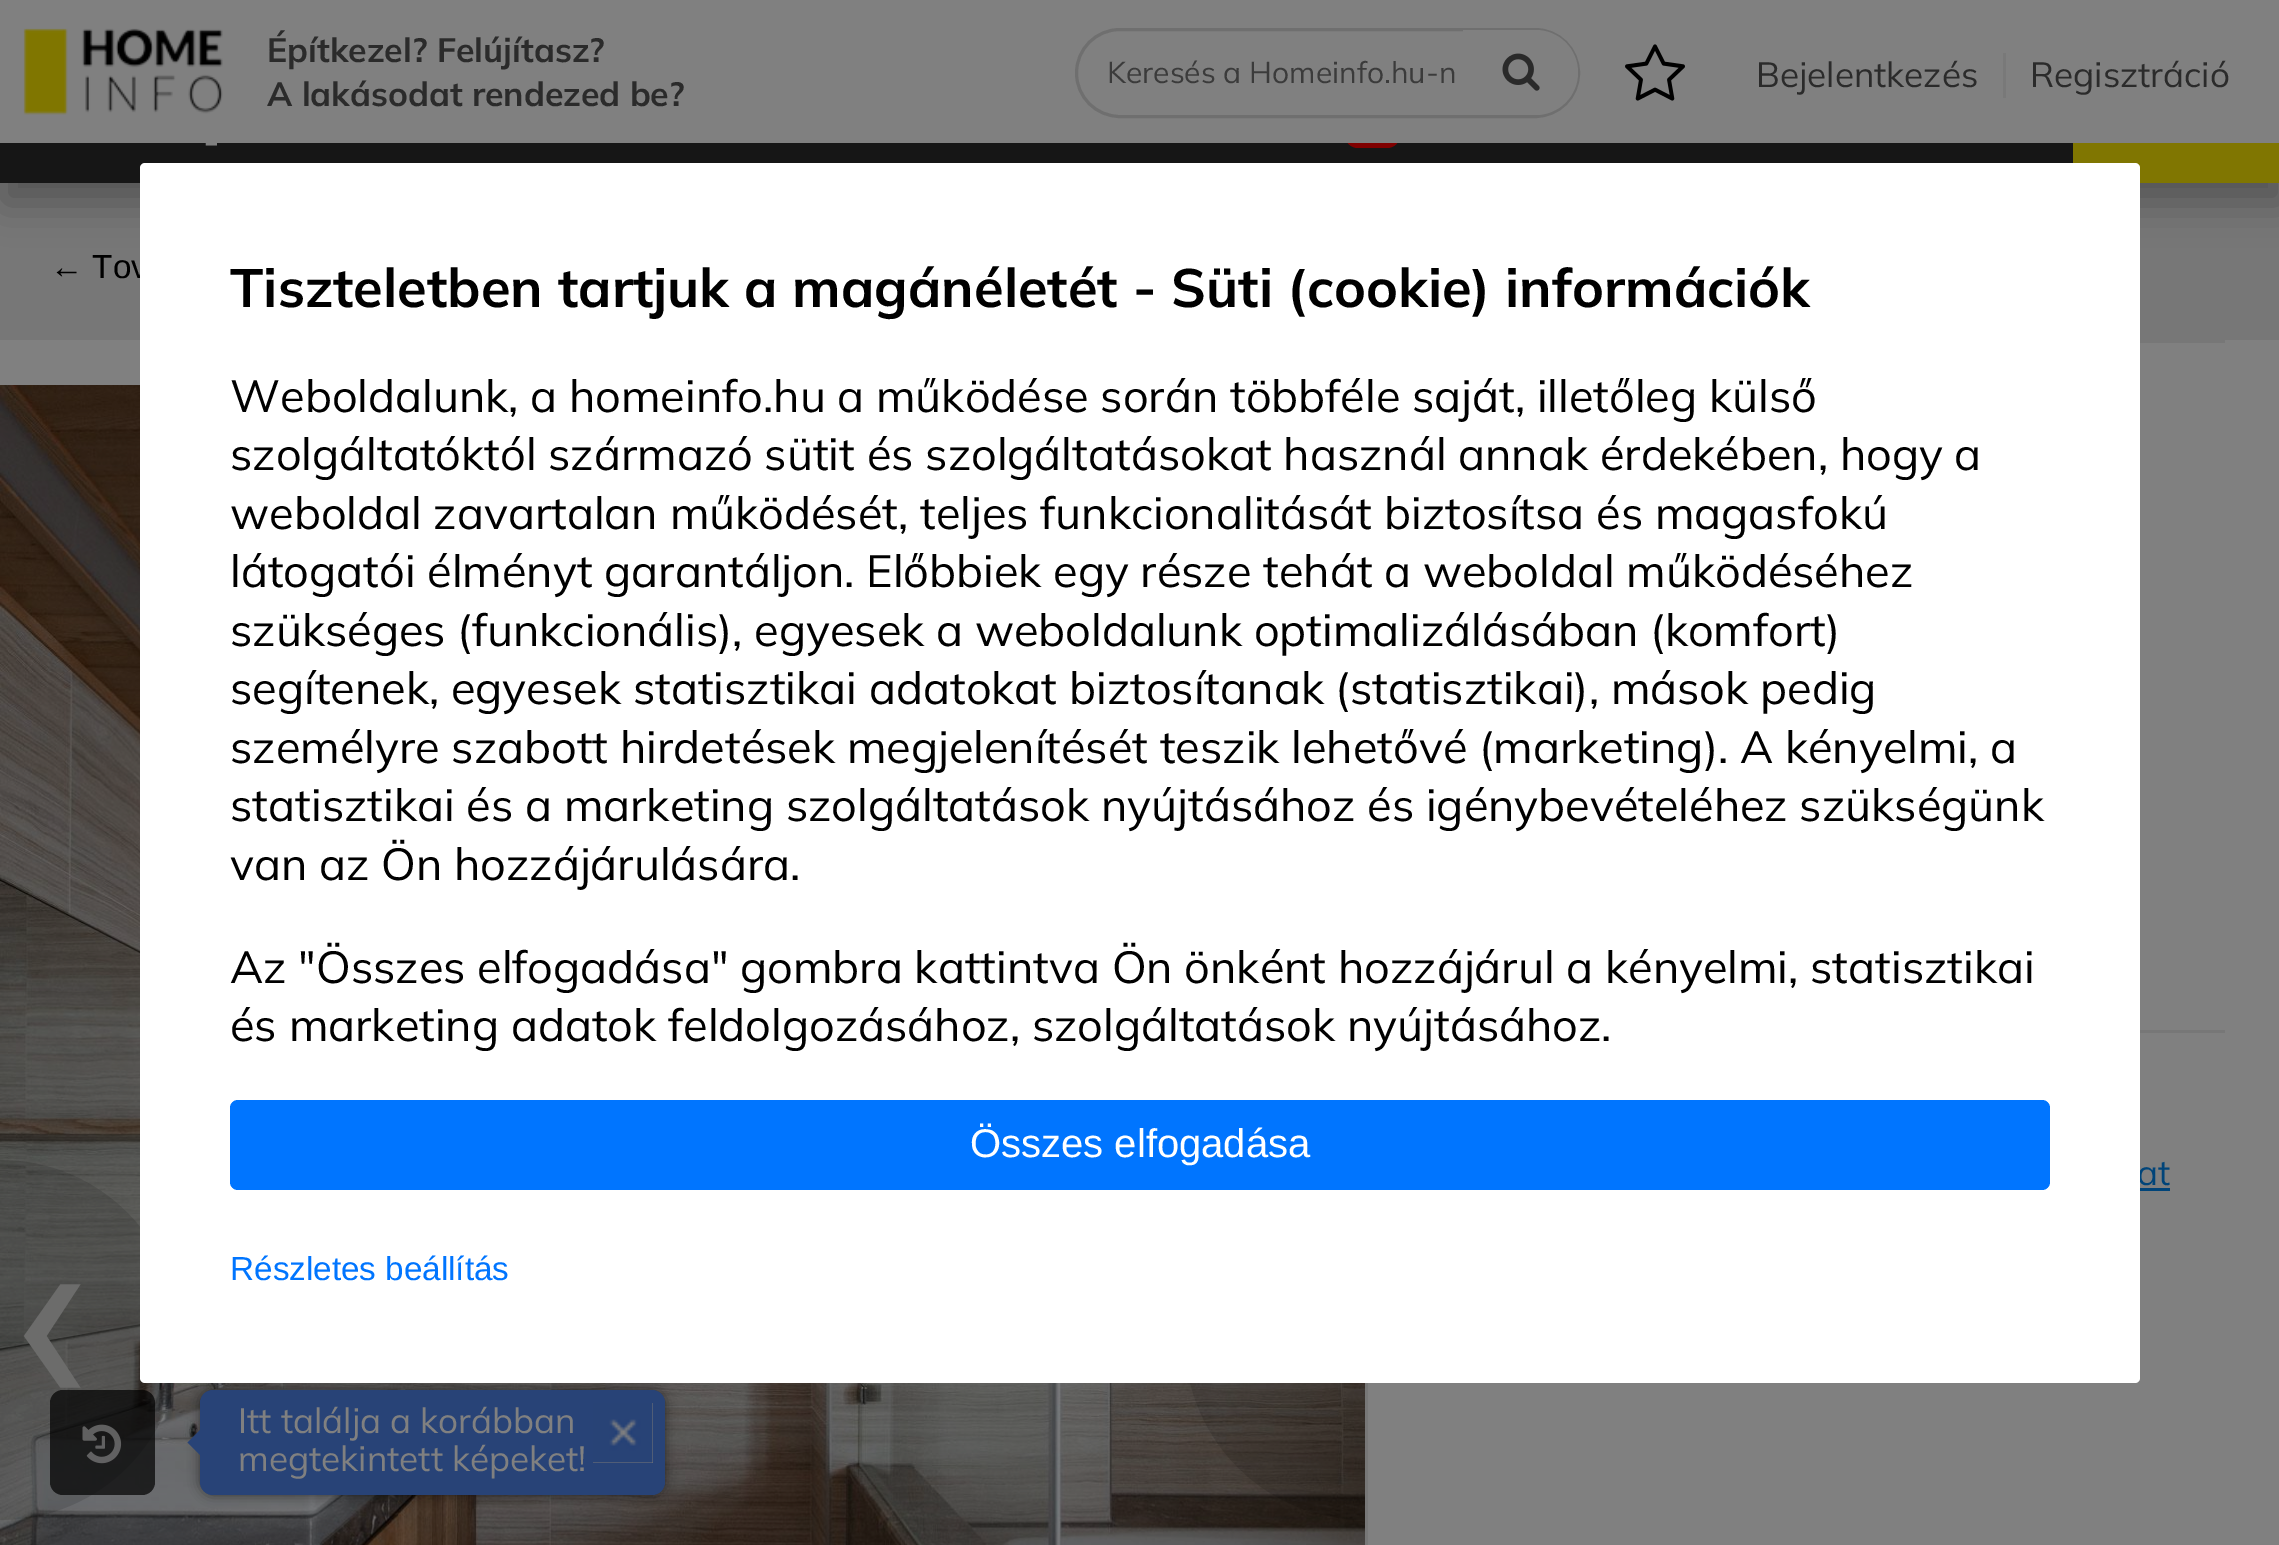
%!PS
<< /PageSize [2279 1545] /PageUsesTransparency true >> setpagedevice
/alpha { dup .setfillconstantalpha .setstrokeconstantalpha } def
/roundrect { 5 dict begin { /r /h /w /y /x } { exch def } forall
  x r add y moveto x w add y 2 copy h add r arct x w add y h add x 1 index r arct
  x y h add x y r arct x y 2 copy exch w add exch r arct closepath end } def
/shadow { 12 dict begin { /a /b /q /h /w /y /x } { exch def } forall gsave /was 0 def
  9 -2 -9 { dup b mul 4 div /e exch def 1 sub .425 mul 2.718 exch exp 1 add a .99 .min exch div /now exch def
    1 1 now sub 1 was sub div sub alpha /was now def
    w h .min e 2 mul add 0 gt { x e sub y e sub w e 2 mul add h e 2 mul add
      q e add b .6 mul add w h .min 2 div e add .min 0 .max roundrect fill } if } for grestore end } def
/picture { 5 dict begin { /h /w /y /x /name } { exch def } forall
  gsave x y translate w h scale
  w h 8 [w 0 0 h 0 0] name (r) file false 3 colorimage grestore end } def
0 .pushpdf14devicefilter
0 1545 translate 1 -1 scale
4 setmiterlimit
0.467 setgray
0 0 2279 1545 rectfill
0 setgray
3 20 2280 183 0 20 0.3 shadow
0.086 setgray
0 143 2073 40 rectfill
0.502 0 0 setrgbcolor
1345 113 55 35 13 roundrect fill
0.502 setgray
0 0 2279 143 rectfill
(img1.rgb) 23 28 200 87 picture
/Mulish-Bold [33.75 0 0 -33.75 0 0] selectfont
0.169 setgray
267 62 moveto (Építkezel? Felújítasz?) show
267 106 moveto (A lakásodat rendezed be?) show
0.435 setgray
3 setlinewidth
1076.5 29.5 502 87 43.5 roundrect stroke
/Mulish-Regular [30 0 0 -30 0 0] selectfont
0.231 setgray
1107 83 moveto (Keresés a Homeinfo.hu-n) show
0.502 setgray
newpath 1463 30 moveto 1535.5 30 lineto 1559 30 1578 49 1578 72.5 curveto 1578 96 1559 115 1535.5 115 curveto 1463 115 lineto closepath fill
(img2.rgb) 1502 53 38 38 picture
(img3.rgb) 1625 44 60 57 picture
/Mulish-Regular [35 0 0 -35 0 0] selectfont
0.169 setgray
1756 87 moveto (Bejelentkezés) show
0.475 setgray
2003 53 3 45 rectfill
0.169 setgray
2030 87 moveto (Regisztráció) show
/Mulish-Regular [39 0 0 -39 0 0] selectfont
0.502 setgray
203 155 moveto (-) show
0.502 0.463 0.004 setrgbcolor
2073 143 206 40 rectfill
/LiberationSans-Regular [33.25 0 0 -33.25 0 0] selectfont
0 setgray
50 278 moveto (← Tov) show
0.502 setgray
0 340 2279 1205 rectfill
0.467 setgray
2140 340 85 3 rectfill
2140 1030 85 3 rectfill
/Mulish-Regular [35 0 0 -35 0 0] selectfont
0 0.267 0.475 setrgbcolor
2137 1185 moveto (at) show
2140 1188 30 3 rectfill
0.467 setgray
1365 1383 3 162 rectfill
(img4.rgb) 0 385 1365 1160 picture
0.12 alpha
0 setgray
newpath 0 1160 moveto 99.5 1160 180 1240.5 180 1340 curveto 180 1439.5 99.5 1520 0 1520 curveto closepath fill
/Mulish-Regular [288 0 0 -288 0 0] selectfont
1 alpha
0.424 0.424 0.42 setrgbcolor
16 1413 moveto (‹) show
0.12 alpha
0 setgray
newpath 1365 1160 moveto 1365 1520 lineto 1265.5 1520 1185 1439.5 1185 1340 curveto 1185 1240.5 1265.5 1160 1365 1160 curveto closepath fill
1 alpha
200 1390 465 105 13 6 0.5 shadow
1 setgray
140 163 2000 1220 5 roundrect fill
/Mulish-Bold [54 0 0 -54 0 0] selectfont
0 setgray
230 307 moveto (Tiszteletben tartjuk a magánéletét - Süti \(cookie\) információk) show
/Mulish-Regular [45 0 0 -45 0 0] selectfont
230 412 moveto (Weboldalunk, a homeinfo.hu a működése során többféle saját, illetőleg külső) show
230 470 moveto (szolgáltatóktól származó sütit és szolgáltatásokat használ annak érdekében, hogy a) show
230 529 moveto (weboldal zavartalan működését, teljes funkcionalitását biztosítsa és magasfokú) show
230 587 moveto (látogatói élményt garantáljon. Előbbiek egy része tehát a weboldal működéséhez) show
230 646 moveto (szükséges \(funkcionális\), egyesek a weboldalunk optimalizálásában \(komfort\)) show
230 704 moveto (segítenek, egyesek statisztikai adatokat biztosítanak \(statisztikai\), mások pedig) show
230 763 moveto (személyre szabott hirdetések megjelenítését teszik lehetővé \(marketing\). A kényelmi, a) show
230 821 moveto (statisztikai és a marketing szolgáltatások nyújtásához és igénybevételéhez szükségünk) show
230 880 moveto (van az Ön hozzájárulására.) show
230 983 moveto (Az "Összes elfogadása" gombra kattintva Ön önként hozzájárul a kényelmi, statisztikai) show
230 1041 moveto (és marketing adatok feldolgozásához, szolgáltatások nyújtásához.) show
0 0.459 1 setrgbcolor
230 1100 1820 90 8 roundrect fill
/LiberationSans-Regular [40 0 0 -40 0 0] selectfont
1 setgray
970 1157 moveto (Összes elfogadása) show
/LiberationSans-Regular [33.25 0 0 -33.25 0 0] selectfont
0 0.459 1 setrgbcolor
230 1280 moveto (Részletes beállítás) show
0.7 alpha
0 setgray
50 1390 105 105 13 roundrect fill
1 alpha
(img5.rgb) 82 1424 40 40 picture
0.157 0.263 0.467 setrgbcolor
200 1390 465 105 13 roundrect fill
newpath 200 1430 moveto 200 1455 lineto 187.5 1442.5 lineto closepath fill
/Mulish-Regular [35 0 0 -35 0 0] selectfont
0.502 setgray
238 1433 moveto (Itt találja a korábban) show
0.471 setgray
593 1403 60 60 rectfill
(img6.rgb) 593 1403 60 60 picture
0.502 setgray
238 1471 moveto (megtekintett képeket!) show
.poppdf14devicefilter showpage
